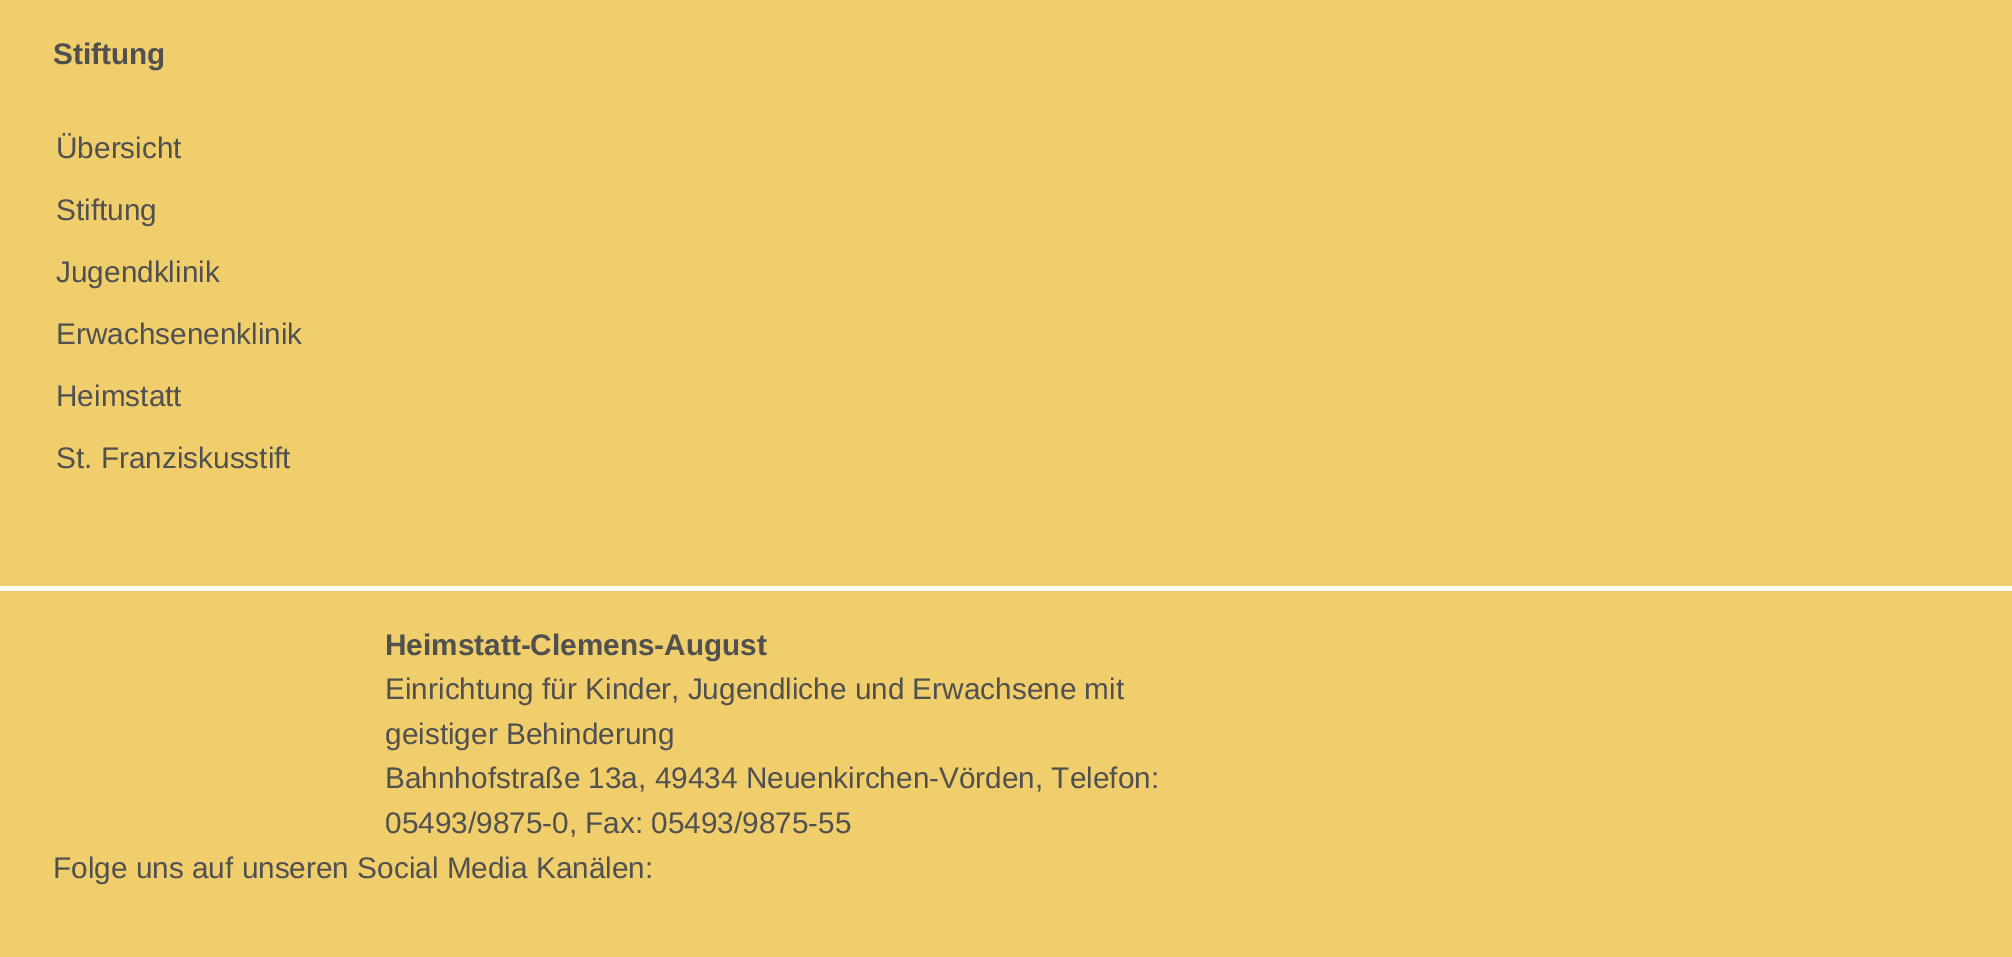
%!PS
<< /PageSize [2012 957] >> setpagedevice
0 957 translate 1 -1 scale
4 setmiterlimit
0.937 0.808 0.42 setrgbcolor
0 0 2012 957 rectfill
/LiberationSans-Bold [29.75 0 0 -29.75 0 0] selectfont
0.314 setgray
53 64 moveto (Stiftung) show
/LiberationSans-Regular [29.75 0 0 -29.75 0 0] selectfont
56 158 moveto (Übersicht) show
56 220 moveto (Stiftung) show
56 282 moveto (Jugendklinik) show
56 344 moveto (Erwachsenenklinik) show
56 406 moveto (Heimstatt) show
56 468 moveto (St. Franziskusstift) show
1 setgray
0 586 2012 5 rectfill
/LiberationSans-Bold [29.75 0 0 -29.75 0 0] selectfont
0.314 setgray
385 655 moveto (Heimstatt-Clemens-August) show
/LiberationSans-Regular [29.75 0 0 -29.75 0 0] selectfont
385 699 moveto (Einrichtung für Kinder, Jugendliche und Erwachsene mit) show
385 744 moveto (geistiger Behinderung) show
385 788 moveto (Bahnhofstraße 13a, 49434 Neuenkirchen-Vörden, Telefon:) show
385 833 moveto (05493/9875-0, Fax: 05493/9875-55) show
53 878 moveto (Folge uns auf unseren Social Media Kanälen:) show
showpage
